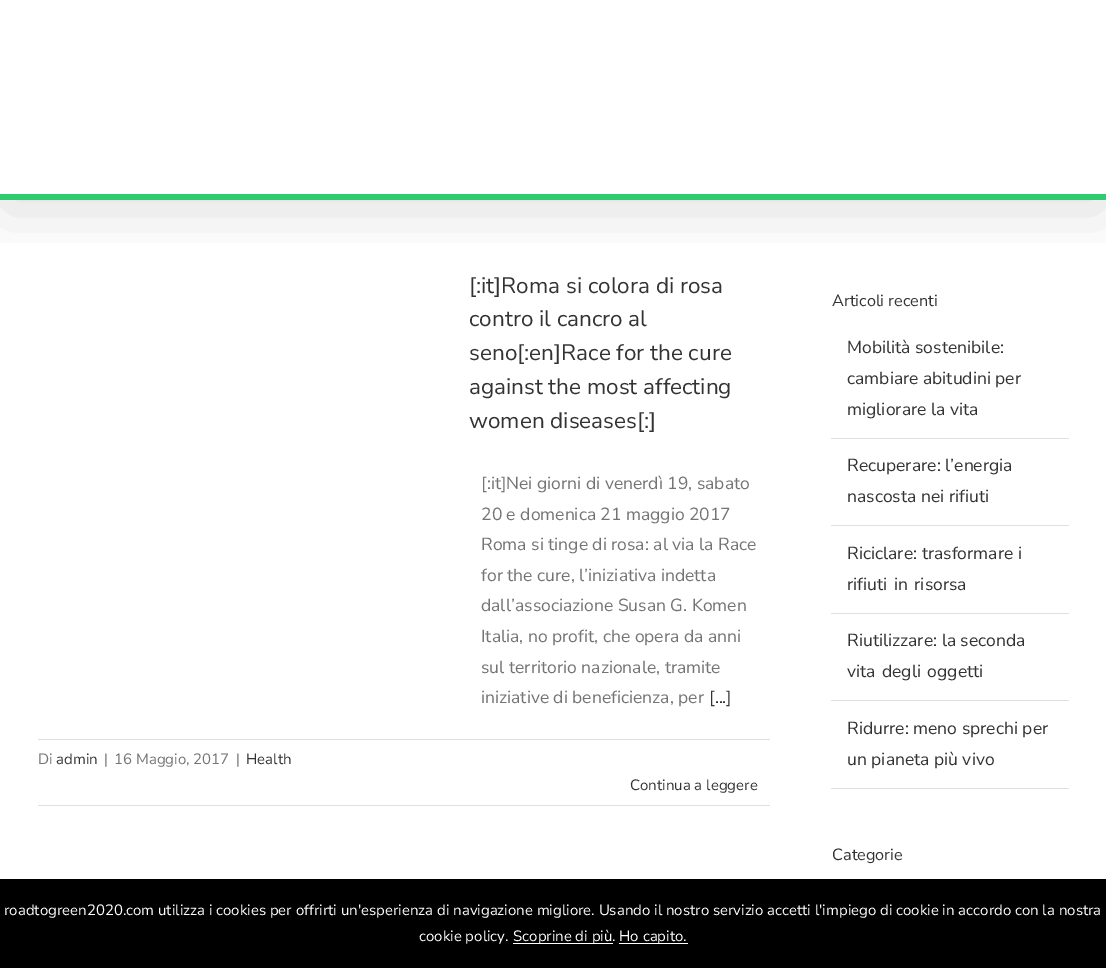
%!PS
<< /PageSize [1106 968] /PageUsesTransparency true >> setpagedevice
/alpha { dup .setfillconstantalpha .setstrokeconstantalpha } def
/roundrect { 5 dict begin { /r /h /w /y /x } { exch def } forall
  x r add y moveto x w add y 2 copy h add r arct x w add y h add x 1 index r arct
  x y h add x y r arct x y 2 copy exch w add exch r arct closepath end } def
/shadow { 12 dict begin { /a /b /q /h /w /y /x } { exch def } forall gsave /was 0 def
  9 -2 -9 { dup b mul 4 div /e exch def 1 sub .425 mul 2.718 exch exp 1 add a .99 .min exch div /now exch def
    1 1 now sub 1 was sub div sub alpha /was now def
    w h .min e 2 mul add 0 gt { x e sub y e sub w e 2 mul add h e 2 mul add
      q e add b .6 mul add w h .min 2 div e add .min 0 .max roundrect fill } if } for grestore end } def
0 .pushpdf14devicefilter
0 968 translate 1 -1 scale
4 setmiterlimit
1 setgray
0 0 1106 968 rectfill
gsave
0 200 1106 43 rectclip
0 setgray
3 -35 1101 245 0 31 0.14 shadow
grestore
0.18 0.8 0.443 setrgbcolor
0 194 1106 6 rectfill
/NunitoSans-ExtraLight [22.5 0 0 -22.5 0 0] selectfont
0.2 setgray
469 293 moveto ([:it]Roma si colora di rosa) show
469 326 moveto (contro il cancro al) show
469 360 moveto (seno[:en]Race for the cure) show
469 394 moveto (against the most affecting) show
469 428 moveto (women diseases[:]) show
/NunitoSans-ExtraLight [17.5 0 0 -17.5 0 0] selectfont
0.455 setgray
481 489 moveto ([:it]Nei giorni di venerdì 19, sabato) show
481 520 moveto (20 e domenica 21 maggio 2017) show
481 550 moveto (Roma si tinge di rosa: al via la Race) show
481 581 moveto (for the cure, l’iniziativa indetta) show
481 611 moveto (dall’associazione Susan G. Komen) show
481 642 moveto (Italia, no profit, che opera da anni) show
481 673 moveto (sul territorio nazionale, tramite) show
481 703 moveto (iniziative di beneficienza, per) show
0.2 setgray
709 703 moveto ([...]) show
0.878 0.871 0.871 setrgbcolor
38 739 732 1 rectfill
38 805 732 1 rectfill
/NunitoSans-ExtraLight [15 0 0 -15 0 0] selectfont
0.455 setgray
38 764 moveto (Di) show
0.2 setgray
56 764 moveto (admin) show
0.455 setgray
104 764 moveto (|) show
114 764 moveto (16 Maggio, 2017) show
236 764 moveto (|) show
0.2 setgray
246 764 moveto (Health) show
630 790 moveto (Continua a leggere) show
/NunitoSans-ExtraLight [16.25 0 0 -16.25 0 0] selectfont
832 306 moveto (Articoli recenti) show
0.878 0.871 0.871 setrgbcolor
831 438 238 1 rectfill
/NunitoSans-ExtraLight [17.5 0 0 -17.5 0 0] selectfont
0.2 setgray
847 353 moveto (Mobilità sostenibile:) show
847 384 moveto (cambiare abitudini per) show
847 415 moveto (migliorare la vita) show
0.878 0.871 0.871 setrgbcolor
831 525 238 1 rectfill
0.2 setgray
847 471 moveto (Recuperare: l’energia) show
847 502 moveto (nascosta nei rifiuti) show
0.878 0.871 0.871 setrgbcolor
831 613 238 1 rectfill
0.2 setgray
847 559 moveto (Riciclare: trasformare i) show
847 590 moveto 2 0 32 (rifiuti in risorsa) widthshow
0.878 0.871 0.871 setrgbcolor
831 700 238 1 rectfill
0.2 setgray
847 646 moveto (Riutilizzare: la seconda) show
847 677 moveto 2 0 32 (vita degli oggetti) widthshow
0.878 0.871 0.871 setrgbcolor
831 788 238 1 rectfill
0.2 setgray
847 734 moveto (Ridurre: meno sprechi per) show
847 765 moveto (un pianeta più vivo) show
/NunitoSans-ExtraLight [16.25 0 0 -16.25 0 0] selectfont
832 860 moveto (Categorie) show
0 setgray
0 879 1106 89 rectfill
/NunitoSans-ExtraLight [15 0 0 -15 0 0] selectfont
1 setgray
4 915 moveto (roadtogreen2020.com utilizza i cookies per offrirti un'esperienza di navigazione migliore. Usando il nostro servizio accetti l'impiego di cookie in accordo con la nostra) show
419 941 moveto (cookie policy.) show
513 943 100 1 rectfill
513 941 moveto (Scoprine di più.) show
619 943 69 1 rectfill
619 941 moveto (Ho capito.) show
.poppdf14devicefilter showpage
